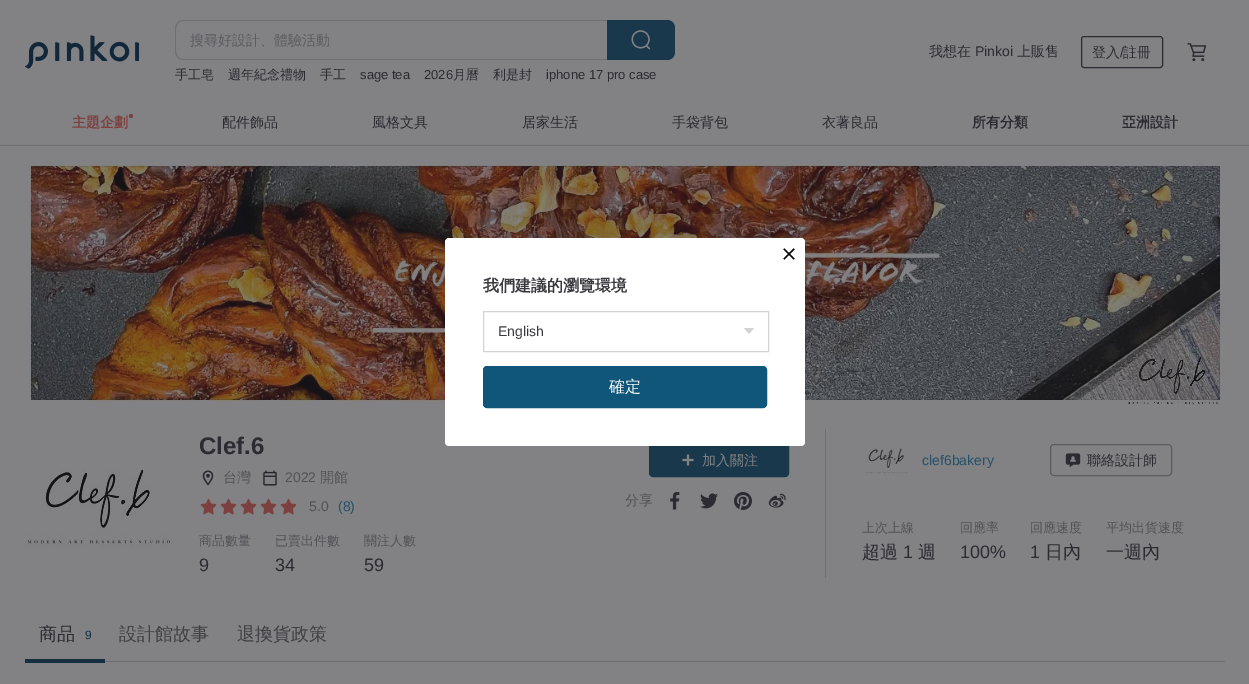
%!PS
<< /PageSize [1249 684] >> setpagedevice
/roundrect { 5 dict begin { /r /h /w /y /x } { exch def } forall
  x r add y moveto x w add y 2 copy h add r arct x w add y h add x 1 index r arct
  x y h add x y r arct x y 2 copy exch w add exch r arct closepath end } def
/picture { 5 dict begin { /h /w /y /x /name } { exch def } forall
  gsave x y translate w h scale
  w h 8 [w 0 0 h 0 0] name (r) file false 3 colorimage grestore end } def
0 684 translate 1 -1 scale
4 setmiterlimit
0.51 0.51 0.522 setrgbcolor
0 0 1249 684 rectfill
(img1.rgb) 25 35 114 34 picture
0.435 0.435 0.451 setrgbcolor
newpath 183 20 moveto 607 20 lineto 607 60 lineto 183 60 lineto 179 60 175 56 175 52 curveto 175 28 lineto 175 24 179 20 183 20 curveto closepath 183 21 moveto 607 21 lineto 607 59 lineto 183 59 lineto 174 59 176 46 176 40 curveto 176 34 174 21 183 21 curveto closepath eofill
/WenQuanYiZenHei-Medium [14 0 0 -14 0 0] selectfont
0.361 0.361 0.38 setrgbcolor
190 45 moveto (搜尋好設計、體驗活動) show
0.098 0.22 0.294 setrgbcolor
newpath 607 20 moveto 667 20 lineto 671.5 20 675 23.5 675 28 curveto 675 52 lineto 675 56.5 671.5 60 667 60 curveto 607 60 lineto closepath fill
(img2.rgb) 631 30 20 20 picture
/WenQuanYiZenHei-Medium [13 0 0 -13 0 0] selectfont
0.169 0.169 0.192 setrgbcolor
175 79 moveto (手工皂) show
228 79 moveto (週年紀念禮物) show
320 79 moveto (手工) show
/LiberationSans-Regular [13 0 0 -13 0 0] selectfont
360 79 moveto (sage tea) show
424 79 moveto (2026) show
/WenQuanYiZenHei-Medium [13 0 0 -13 0 0] selectfont
453 79 moveto (月曆) show
493 79 moveto (利是封) show
/LiberationSans-Regular [13 0 0 -13 0 0] selectfont
546 79 moveto (iphone 17 pro case) show
/WenQuanYiZenHei-Medium [14 0 0 -14 0 0] selectfont
929 56 moveto (我想在) show
/LiberationSans-Regular [14 0 0 -14 0 0] selectfont
975 56 moveto (Pinkoi) show
/WenQuanYiZenHei-Medium [14 0 0 -14 0 0] selectfont
1017 56 moveto (上販售) show
1081.5 36.5 81 31 2.5 roundrect stroke
1092 57 moveto (登入) show
/LiberationSans-Regular [14 0 0 -14 0 0] selectfont
1120 57 moveto (/) show
/WenQuanYiZenHei-Medium [14 0 0 -14 0 0] selectfont
1123 57 moveto (註冊) show
(img3.rgb) 1187 43 20 19 picture
0.435 0.435 0.451 setrgbcolor
0 145 1249 1 rectfill
/WenQuanYiZenHei-Bold [14 0 0 -14 0 0] selectfont
0.486 0.255 0.243 setrgbcolor
72 127 moveto (主題企劃) show
newpath 131 116 2 0 360 arc closepath fill
/WenQuanYiZenHei-Medium [14 0 0 -14 0 0] selectfont
0.169 0.169 0.192 setrgbcolor
222 127 moveto (配件飾品) show
372 127 moveto (風格文具) show
522 127 moveto (居家生活) show
672 127 moveto (手袋背包) show
822 127 moveto (衣著良品) show
/WenQuanYiZenHei-Bold [14 0 0 -14 0 0] selectfont
972 127 moveto (所有分類) show
1122 127 moveto (亞洲設計) show
(img5.rgb) 25 160 1200 245 picture
0.098 0.22 0.294 setrgbcolor
649.5 443.5 139 33 3.5 roundrect gsave fill grestore
stroke
1 setgray
445 238 360 208 4 roundrect fill
(img4.rgb) 783 248 12 12 picture
/WenQuanYiZenHei-Bold [16 0 0 -16 0 0] selectfont
0.224 0.224 0.243 setrgbcolor
483 291 moveto (我們建議的瀏覽環境) show
0.827 0.827 0.835 setrgbcolor
483.5 311.5 285 40 rectstroke
newpath 744 328 moveto 754 328 lineto 749 334 lineto closepath eofill
/LiberationSans-Regular [14 0 0 -14 0 0] selectfont
0.224 0.224 0.243 setrgbcolor
498 336 moveto (English) show
0.063 0.337 0.482 setrgbcolor
483.5 366.5 283 41 3.5 roundrect gsave fill grestore
stroke
/WenQuanYiZenHei-Medium [16 0 0 -16 0 0] selectfont
1 setgray
609 392 moveto (確定) show
(img6.rgb) 25 429 150 150 picture
(img7.rgb) 25 429 150 150 picture
/LiberationSans-Bold [24 0 0 -24 0 0] selectfont
0.169 0.169 0.192 setrgbcolor
199 454 moveto (Clef.6) show
(img8.rgb) 202 470 12 16 picture
/WenQuanYiZenHei-Medium [14 0 0 -14 0 0] selectfont
0.322 0.322 0.341 setrgbcolor
223 482 moveto (台灣) show
(img9.rgb) 263 470 14 16 picture
/LiberationSans-Regular [14 0 0 -14 0 0] selectfont
285 482 moveto (2022) show
/WenQuanYiZenHei-Medium [14 0 0 -14 0 0] selectfont
320 482 moveto (開館) show
(img10.rgb) 200 498 17 17 picture
(img10.rgb) 220 498 17 17 picture
(img10.rgb) 240 498 17 17 picture
(img10.rgb) 260 498 17 17 picture
(img10.rgb) 280 498 17 17 picture
/LiberationSans-Regular [14 0 0 -14 0 0] selectfont
309 511 moveto (5.0) show
0.149 0.318 0.4 setrgbcolor
338 511 moveto (\(8\)) show
/WenQuanYiZenHei-Medium [13 0 0 -13 0 0] selectfont
0.322 0.322 0.341 setrgbcolor
199 545 moveto (商品數量) show
/LiberationSans-Regular [18 0 0 -18 0 0] selectfont
0.169 0.169 0.192 setrgbcolor
199 571 moveto (9) show
/WenQuanYiZenHei-Medium [13 0 0 -13 0 0] selectfont
0.322 0.322 0.341 setrgbcolor
275 545 moveto (已賣出件數) show
/LiberationSans-Regular [18 0 0 -18 0 0] selectfont
0.169 0.169 0.192 setrgbcolor
275 571 moveto (34) show
/WenQuanYiZenHei-Medium [13 0 0 -13 0 0] selectfont
0.322 0.322 0.341 setrgbcolor
364 545 moveto (關注人數) show
/LiberationSans-Regular [18 0 0 -18 0 0] selectfont
0.169 0.169 0.192 setrgbcolor
364 571 moveto (59) show
(img11.rgb) 682 454 12 12 picture
/WenQuanYiZenHei-Medium [14 0 0 -14 0 0] selectfont
0.51 0.51 0.522 setrgbcolor
702 465 moveto (加入關注) show
0.322 0.322 0.341 setrgbcolor
625 505 moveto (分享) show
(img12.rgb) 670 492 10 18 picture
(img13.rgb) 700 493 18 16 picture
(img14.rgb) 734 492 18 18 picture
(img15.rgb) 768 493 18 15 picture
0.435 0.435 0.451 setrgbcolor
825 429 1 149 rectfill
(img16.rgb) 865 447 44 28 picture
/LiberationSans-Regular [14 0 0 -14 0 0] selectfont
0.149 0.318 0.4 setrgbcolor
922 465 moveto (clef6bakery) show
0.361 0.361 0.38 setrgbcolor
1050.5 444.5 121 31 3.5 roundrect stroke
(img17.rgb) 1065 453 16 14 picture
/WenQuanYiZenHei-Medium [14 0 0 -14 0 0] selectfont
0.169 0.169 0.192 setrgbcolor
1087 465 moveto (聯絡設計師) show
/WenQuanYiZenHei-Medium [13 0 0 -13 0 0] selectfont
0.322 0.322 0.341 setrgbcolor
862 532 moveto (上次上線) show
/WenQuanYiZenHei-Medium [18 0 0 -18 0 0] selectfont
0.169 0.169 0.192 setrgbcolor
862 558 moveto (超過) show
/LiberationSans-Regular [18 0 0 -18 0 0] selectfont
903 558 moveto (1) show
/WenQuanYiZenHei-Medium [18 0 0 -18 0 0] selectfont
918 558 moveto (週) show
/WenQuanYiZenHei-Medium [13 0 0 -13 0 0] selectfont
0.322 0.322 0.341 setrgbcolor
960 532 moveto (回應率) show
/LiberationSans-Regular [18 0 0 -18 0 0] selectfont
0.169 0.169 0.192 setrgbcolor
960 558 moveto (100%) show
/WenQuanYiZenHei-Medium [13 0 0 -13 0 0] selectfont
0.322 0.322 0.341 setrgbcolor
1030 532 moveto (回應速度) show
/LiberationSans-Regular [18 0 0 -18 0 0] selectfont
0.169 0.169 0.192 setrgbcolor
1030 558 moveto (1) show
/WenQuanYiZenHei-Medium [18 0 0 -18 0 0] selectfont
1045 558 moveto (日內) show
/WenQuanYiZenHei-Medium [13 0 0 -13 0 0] selectfont
0.322 0.322 0.341 setrgbcolor
1106 532 moveto (平均出貨速度) show
/WenQuanYiZenHei-Medium [18 0 0 -18 0 0] selectfont
0.169 0.169 0.192 setrgbcolor
1106 558 moveto (一週內) show
0.435 0.435 0.451 setrgbcolor
105 661 1120 1 rectfill
0.082 0.184 0.251 setrgbcolor
25 659 80 4 rectfill
0.169 0.169 0.192 setrgbcolor
39 640 moveto (商品) show
/LiberationSans-Regular [12 0 0 -12 0 0] selectfont
0.082 0.184 0.251 setrgbcolor
85 639 moveto (9) show
/WenQuanYiZenHei-Medium [18 0 0 -18 0 0] selectfont
0.247 0.247 0.267 setrgbcolor
119 640 moveto (設計館故事) show
237 640 moveto (退換貨政策) show
showpage
